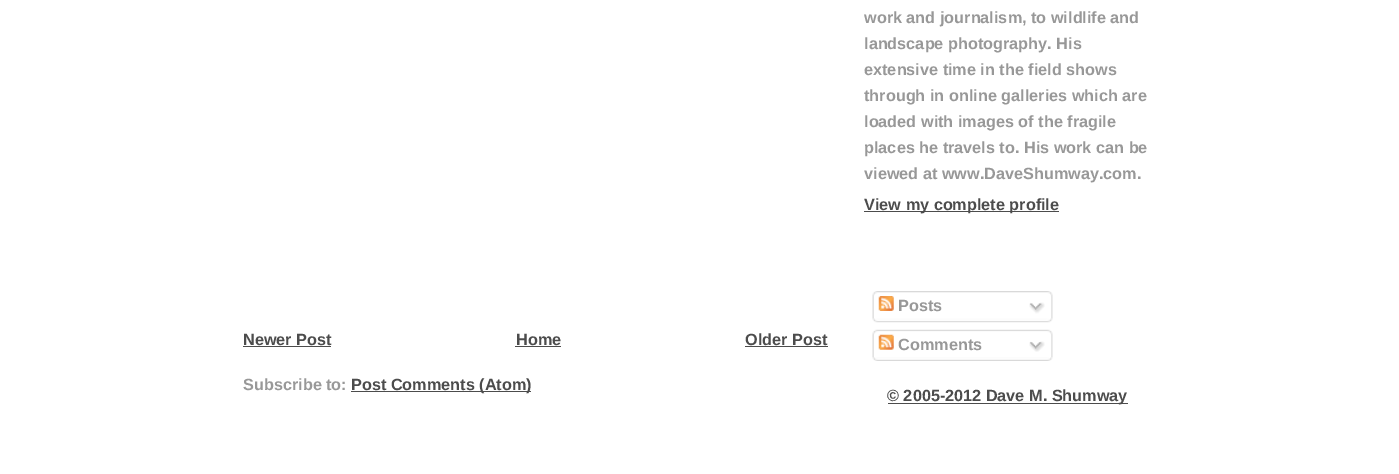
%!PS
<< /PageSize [1399 474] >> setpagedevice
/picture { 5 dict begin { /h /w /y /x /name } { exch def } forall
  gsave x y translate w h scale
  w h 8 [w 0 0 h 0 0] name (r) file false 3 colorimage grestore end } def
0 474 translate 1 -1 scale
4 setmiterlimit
1 setgray
0 0 1399 474 rectfill
/LiberationSans-Bold [16.25 0 0 -16.25 0 0] selectfont
0.298 setgray
243 345 moveto (Newer Post) show
243 346 88 1 rectfill
516 345 moveto (Home) show
515 346 46 1 rectfill
745 345 moveto (Older Post) show
745 346 83 1 rectfill
0.596 setgray
243 390 moveto (Subscribe to:) show
0.298 setgray
351 391 180 1 rectfill
351 390 moveto (Post Comments \(Atom\)) show
0.596 setgray
864 23 moveto (work and journalism, to wildlife and) show
864 49 moveto (landscape photography. His) show
864 75 moveto (extensive time in the field shows) show
864 101 moveto (through in online galleries which are) show
864 127 moveto (loaded with images of the fragile) show
864 153 moveto (places he travels to. His work can be) show
864 179 moveto (viewed at www.DaveShumway.com.) show
0.298 setgray
864 211 195 1 rectfill
864 210 moveto (View my complete profile) show
(img1.rgb) 872 291 181 28 picture
(img2.rgb) 878 296 16 15 picture
0.596 setgray
898 311 moveto (Posts) show
(img3.rgb) 1029 302 16 12 picture
(img4.rgb) 872 318 181 5 picture
(img5.rgb) 872 329 181 29 picture
(img6.rgb) 878 334 16 16 picture
898 350 moveto (Comments) show
(img7.rgb) 1029 341 16 11 picture
(img8.rgb) 872 357 181 4 picture
0.298 setgray
888 403 240 1 rectfill
887 401 moveto (© 2005-2012 Dave M. Shumway) show
showpage
